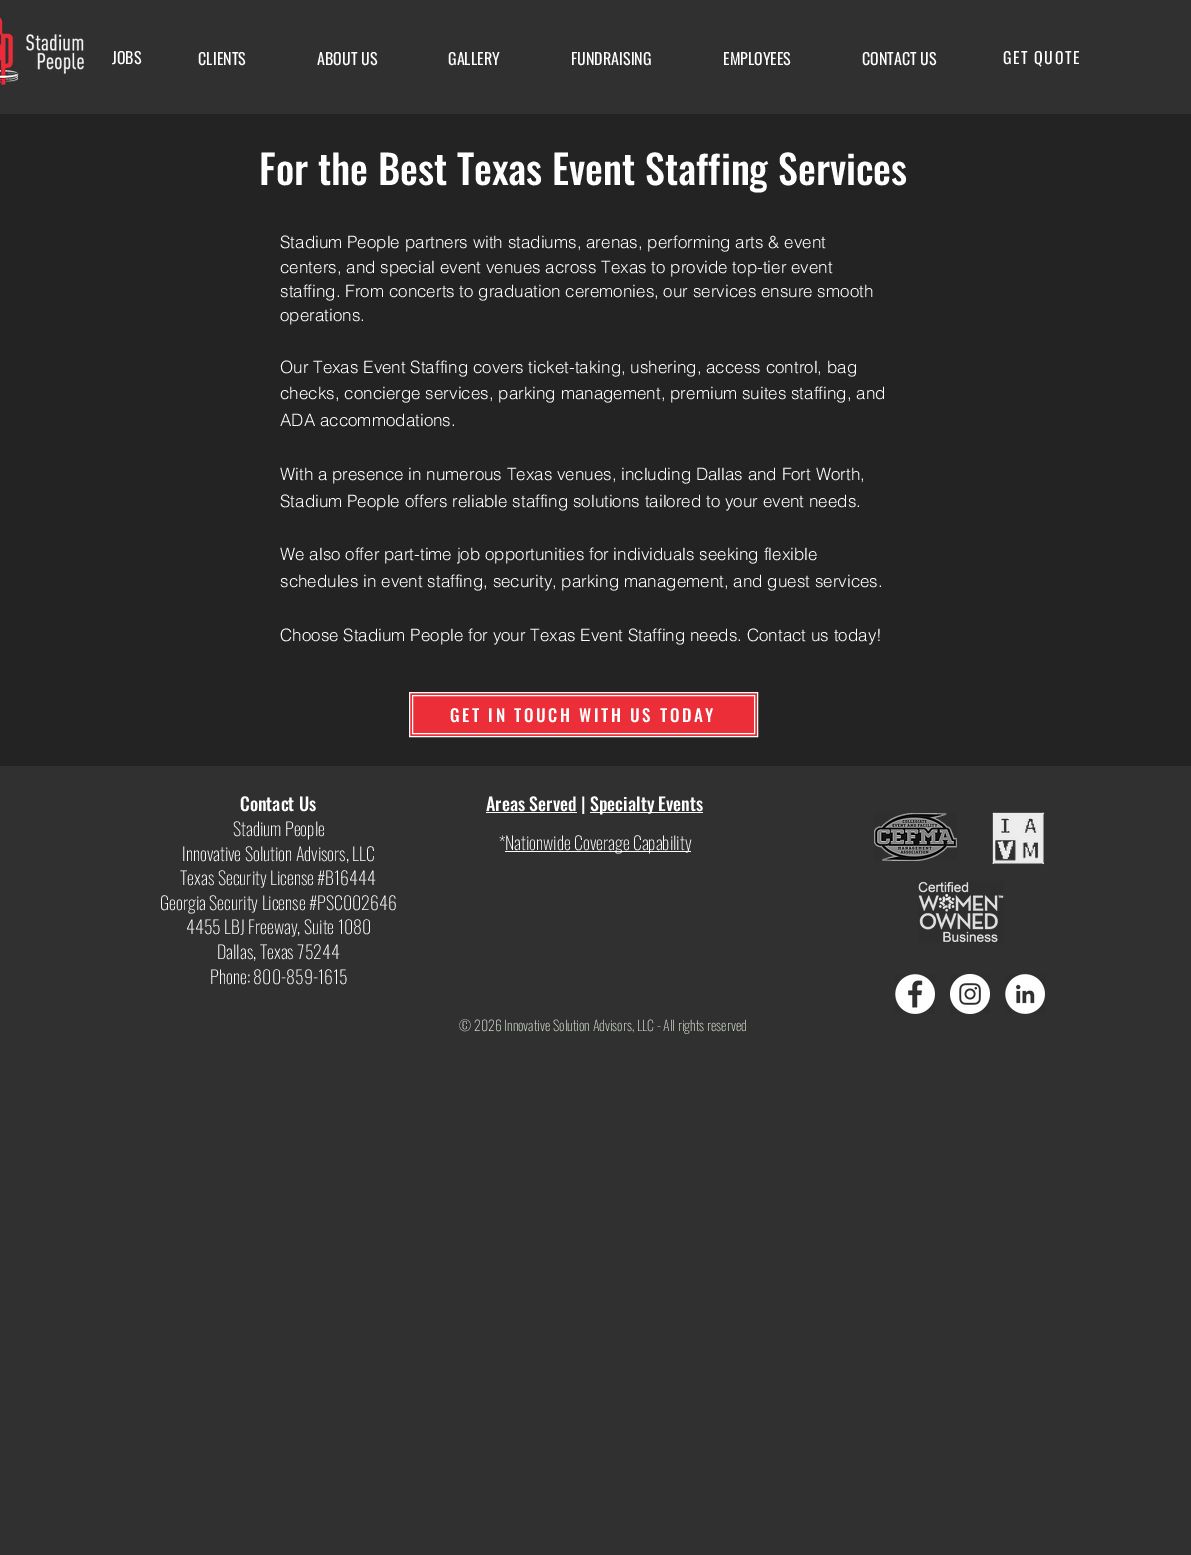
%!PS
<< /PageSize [1191 1555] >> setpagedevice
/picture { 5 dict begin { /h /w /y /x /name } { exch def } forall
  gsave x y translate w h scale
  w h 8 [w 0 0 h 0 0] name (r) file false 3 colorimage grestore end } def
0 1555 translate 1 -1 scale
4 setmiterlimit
0.188 setgray
0 0 1191 1555 rectfill
(img1.rgb) 0 17 85 68 picture
/Oswald-Regular [16 0 0 -16 0 0] selectfont
1 setgray
112 64 moveto (JOBS) show
198 65 moveto (CLIENTS) show
317 65 moveto (ABOUT US) show
448 65 moveto (GALLERY) show
571 65 moveto (FUNDRAISING) show
723 65 moveto (EMPLOYEES) show
862 65 moveto (CONTACT US) show
1003 64 moveto 1.5 0 (GET QUOTE) ashow
0.141 0.137 0.137 setrgbcolor
0 114 1191 652 rectfill
/Oswald-Medium [40 0 0 -40 0 0] selectfont
1 setgray
259 185 moveto (For the Best Texas Event Staffing Services) show
/helvetica-Light [17 0 0 -17 0 0] selectfont
280 248 moveto (Stadium People partners with stadiums, arenas, performing arts & event) show
280 273 moveto (centers, and special event venues across Texas to provide top-tier event) show
280 297 moveto (staffing. From concerts to graduation ceremonies, our services ensure smooth) show
280 321 moveto (operations.) show
280 373 moveto (Our Texas Event Staffing covers ticket-taking, ushering, access control, bag) show
280 399 moveto (checks, concierge services, parking management, premium suites staffing, and) show
280 426 moveto (ADA accommodations.) show
280 480 moveto (With a presence in numerous Texas venues, including Dallas and Fort Worth,) show
280 507 moveto (Stadium People offers reliable staffing solutions tailored to your event needs.) show
280 560 moveto (We also offer part-time job opportunities for individuals seeking flexible) show
280 587 moveto (schedules in event staffing, security, parking management, and guest services.) show
280 641 moveto (Choose Stadium People for your Texas Event Staffing needs. Contact us today!) show
0.922 0.18 0.22 setrgbcolor
newpath 409.5 692.5 moveto 757.5 692.5 lineto 757.5 736.5 lineto 409.5 736.5 lineto closepath gsave fill grestore
1 setgray
stroke
412.5 695.5 342 38 rectstroke
/Oswald-Medium [17 0 0 -17 0 0] selectfont
450 722 moveto 2.55 0 (GET IN TOUCH WITH US TODAY) ashow
/Oswald-Medium [18 0 0 -18 0 0] selectfont
240 811 moveto (Contact Us) show
/Oswald-ExtraLight [18 0 0 -18 0 0] selectfont
233 836 moveto (Stadium People) show
182 861 moveto (Innovative Solution Advisors, LLC) show
180 885 moveto (Texas Security License #B16444) show
160 910 moveto (Georgia Security License #PSC002646) show
186 934 moveto (4455 LBJ Freeway, Suite 1080) show
217 959 moveto (Dallas, Texas 75244) show
210 984 moveto (Phone: 800-859-1615) show
486 812 91 1 rectfill
/Oswald-Medium [18 0 0 -18 0 0] selectfont
486 811 moveto (Areas Served |) show
590 812 113 1 rectfill
590 811 moveto (Specialty Events) show
/Oswald-ExtraLight [18 0 0 -18 0 0] selectfont
499 850 moveto (*) show
505 851 186 1 rectfill
505 850 moveto (Nationwide Coverage Capability) show
(img2.rgb) 874 813 83 48 picture
(img3.rgb) 992 812 53 53 picture
(img4.rgb) 918 881 86 62 picture
(img5.rgb) 895 974 40 40 picture
(img6.rgb) 950 974 40 40 picture
(img7.rgb) 1005 974 40 40 picture
/Oswald-ExtraLight [14 0 0 -14 0 0] selectfont
0.816 0.855 0.8 setrgbcolor
459 1031 moveto (© 2026 Innovative Solution Advisors, LLC - All rights reserved) show
showpage
